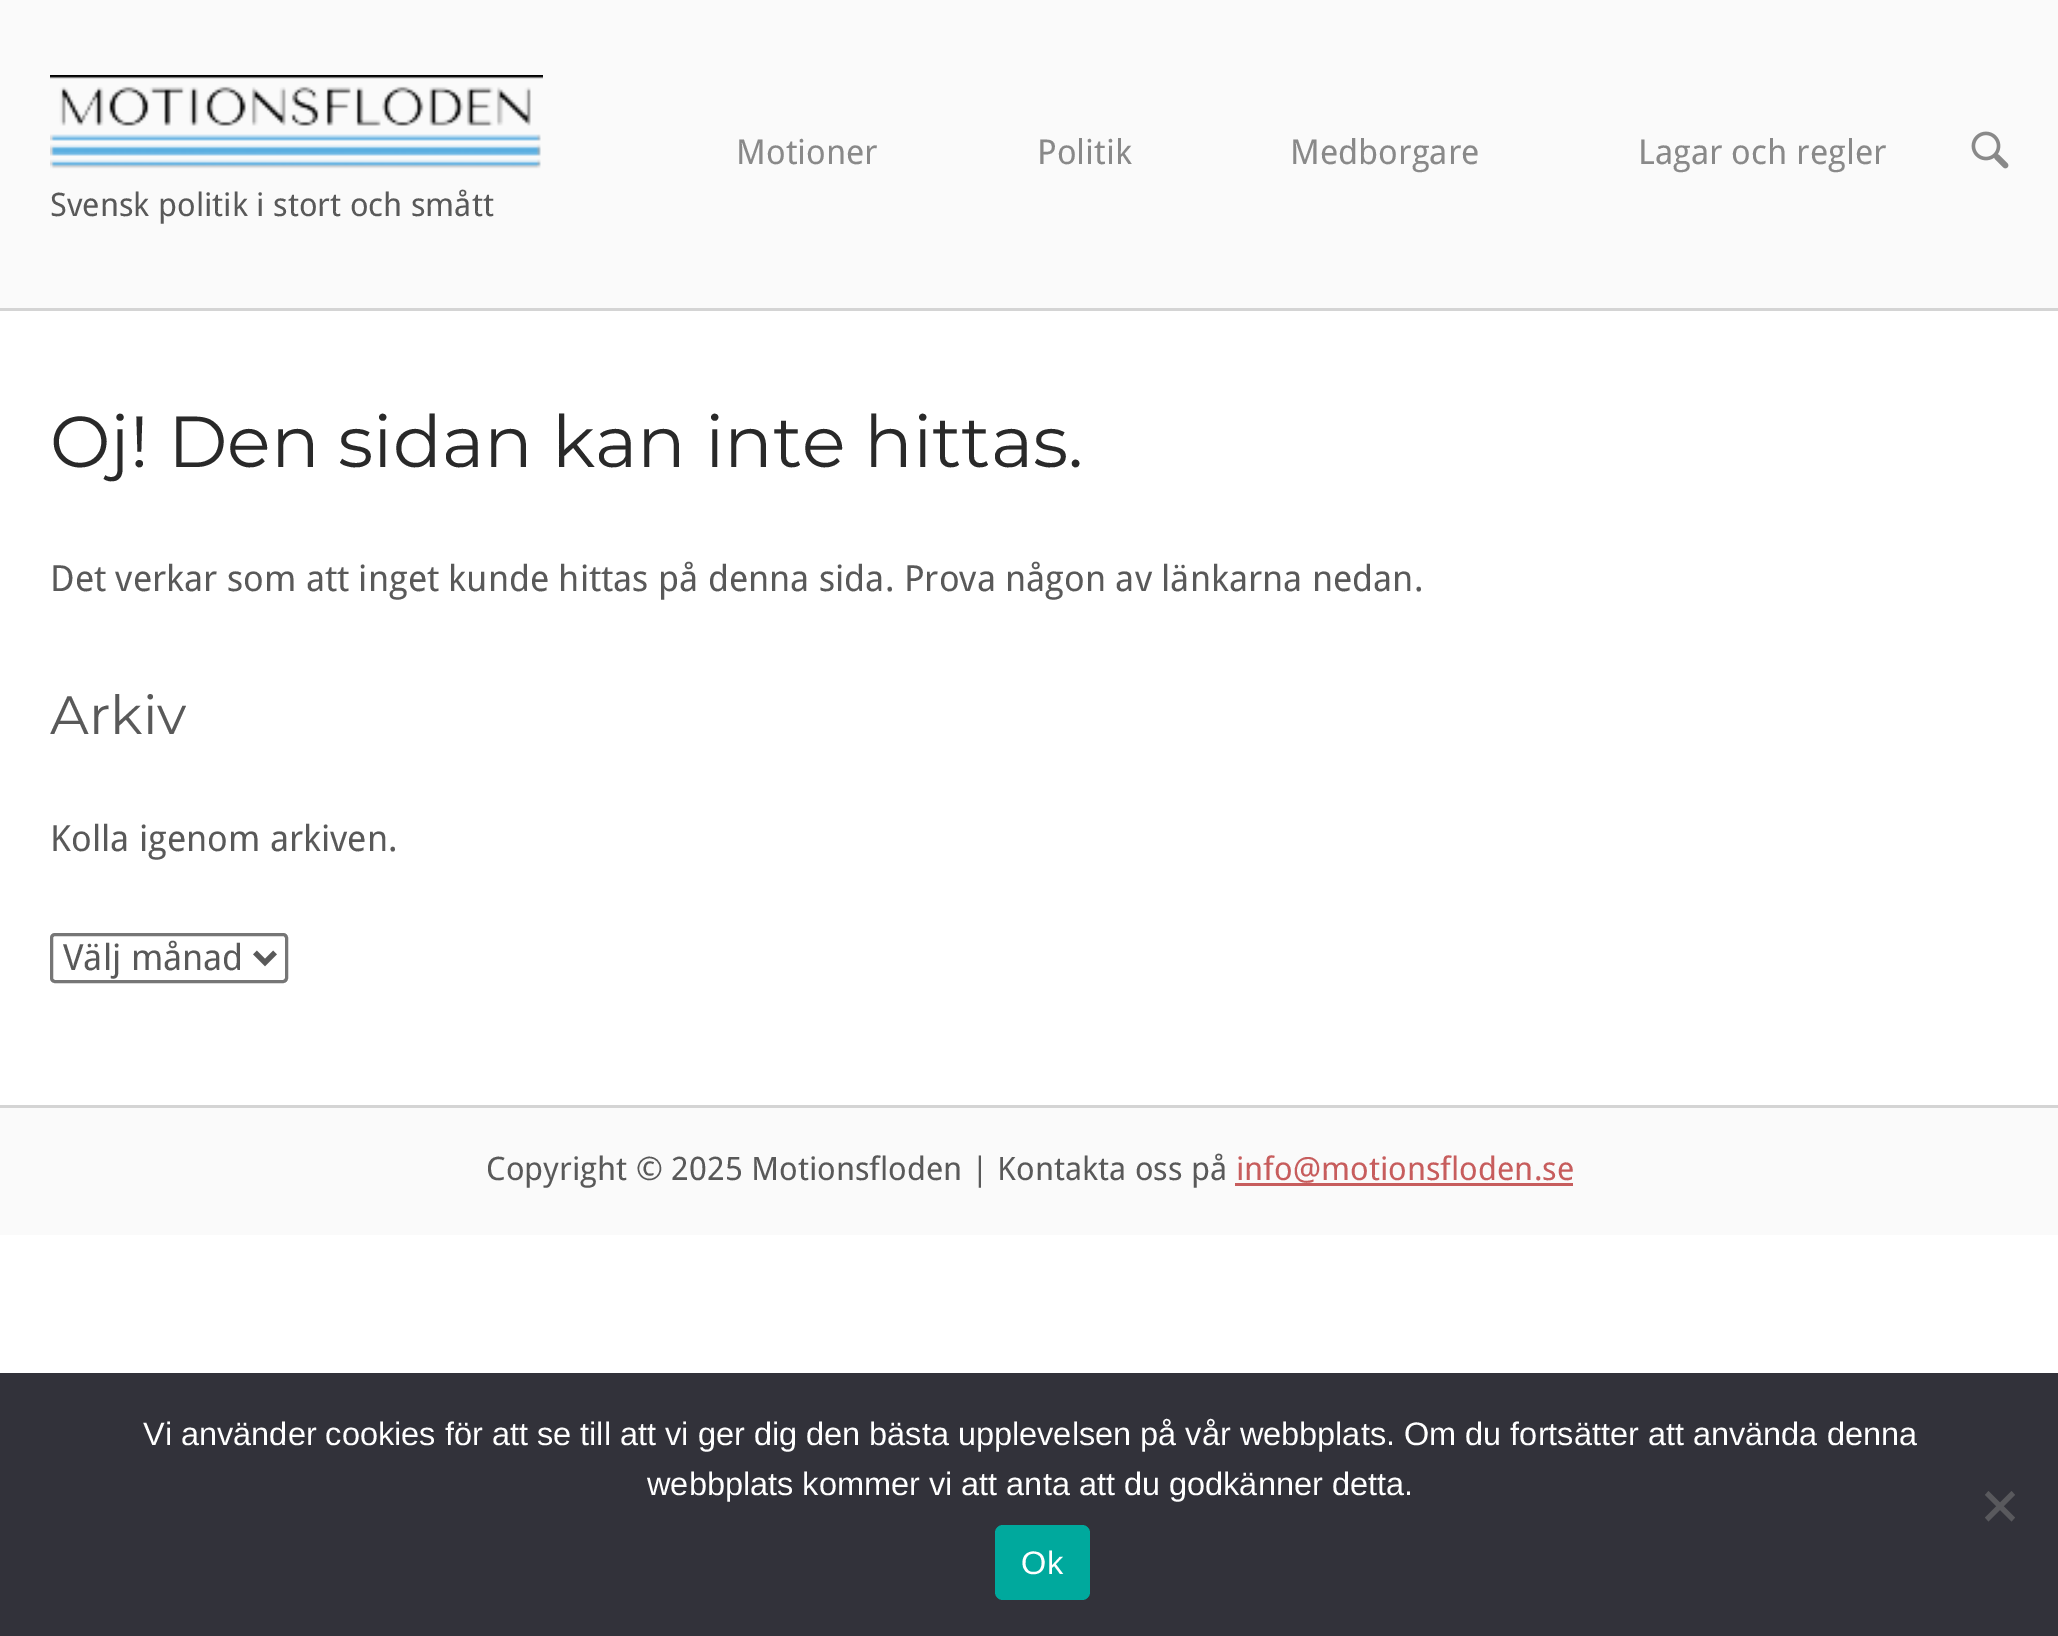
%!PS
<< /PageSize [2058 1636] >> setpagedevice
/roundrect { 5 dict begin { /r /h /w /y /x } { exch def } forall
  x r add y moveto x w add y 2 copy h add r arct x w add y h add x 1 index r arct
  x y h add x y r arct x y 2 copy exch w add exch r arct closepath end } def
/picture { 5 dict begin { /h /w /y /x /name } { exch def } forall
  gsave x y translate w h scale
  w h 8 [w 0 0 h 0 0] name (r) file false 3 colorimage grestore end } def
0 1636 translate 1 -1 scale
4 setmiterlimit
1 setgray
0 0 2058 1636 rectfill
0.98 setgray
0 0 2058 308 rectfill
0.831 setgray
0 308 2058 3 rectfill
/DroidSans-Regular [34.25 0 0 -34.25 0 0] selectfont
0.537 setgray
736 164 moveto (Motioner) show
1037 164 moveto (Politik) show
1290 164 moveto (Medborgare) show
1638 164 moveto (Lagar och regler) show
(img1.rgb) 1971 131 38 38 picture
(img2.rgb) 50 75 493 94 picture
/DroidSans-Regular [32.4 0 0 -32.4 0 0] selectfont
0.349 setgray
50 216 moveto (Svensk politik i stort och smått) show
/Montserrat-Thin [72 0 0 -72 0 0] selectfont
0.161 setgray
50 467 moveto (Oj! Den sidan kan inte hittas.) show
/DroidSans-Regular [36 0 0 -36 0 0] selectfont
0.349 setgray
50 591 moveto (Det verkar som att inget kunde hittas på denna sida. Prova någon av länkarna nedan.) show
/Montserrat-Thin [54 0 0 -54 0 0] selectfont
50 734 moveto (Arkiv) show
/DroidSans-Regular [36 0 0 -36 0 0] selectfont
50 851 moveto (Kolla igenom arkiven.) show
0.463 setgray
3 setlinewidth
51.5 934.5 235 47 3.5 roundrect stroke
0.349 setgray
5 setlinewidth
newpath 255 952.5 moveto 265 962.5 lineto 275 952.5 lineto stroke
63 970 moveto (Välj månad) show
0.98 setgray
0 1108 2058 127 rectfill
0.831 setgray
0 1105 2058 3 rectfill
/DroidSans-Regular [32.4 0 0 -32.4 0 0] selectfont
0.349 setgray
486 1180 moveto (Copyright © 2025 Motionsfloden | Kontakta oss på) show
0.78 0.365 0.365 setrgbcolor
1236 1180 moveto (info@motionsfloden.se) show
1235 1183 338 3 rectfill
0.196 0.196 0.227 setrgbcolor
0 1373 2058 263 rectfill
/LiberationSans-Regular [32.5 0 0 -32.5 0 0] selectfont
1 setgray
143 1445 moveto (Vi använder cookies för att se till att vi ger dig den bästa upplevelsen på vår webbplats. Om du fortsätter att använda denna) show
647 1495 moveto (webbplats kommer vi att anta att du godkänner detta.) show
0.349 0.349 0.365 setrgbcolor
newpath 2011.5 1491 moveto 2015 1495 lineto 1988.5 1521.5 lineto 1985 1517.5 lineto closepath fill
newpath 1985 1495 moveto 1988.5 1491 lineto 2015 1517.5 lineto 2011.5 1521.5 lineto closepath fill
0 0.663 0.616 setrgbcolor
995 1525 95 75 8 roundrect fill
1 setgray
1021 1574 moveto 1 0 (Ok) ashow
showpage
